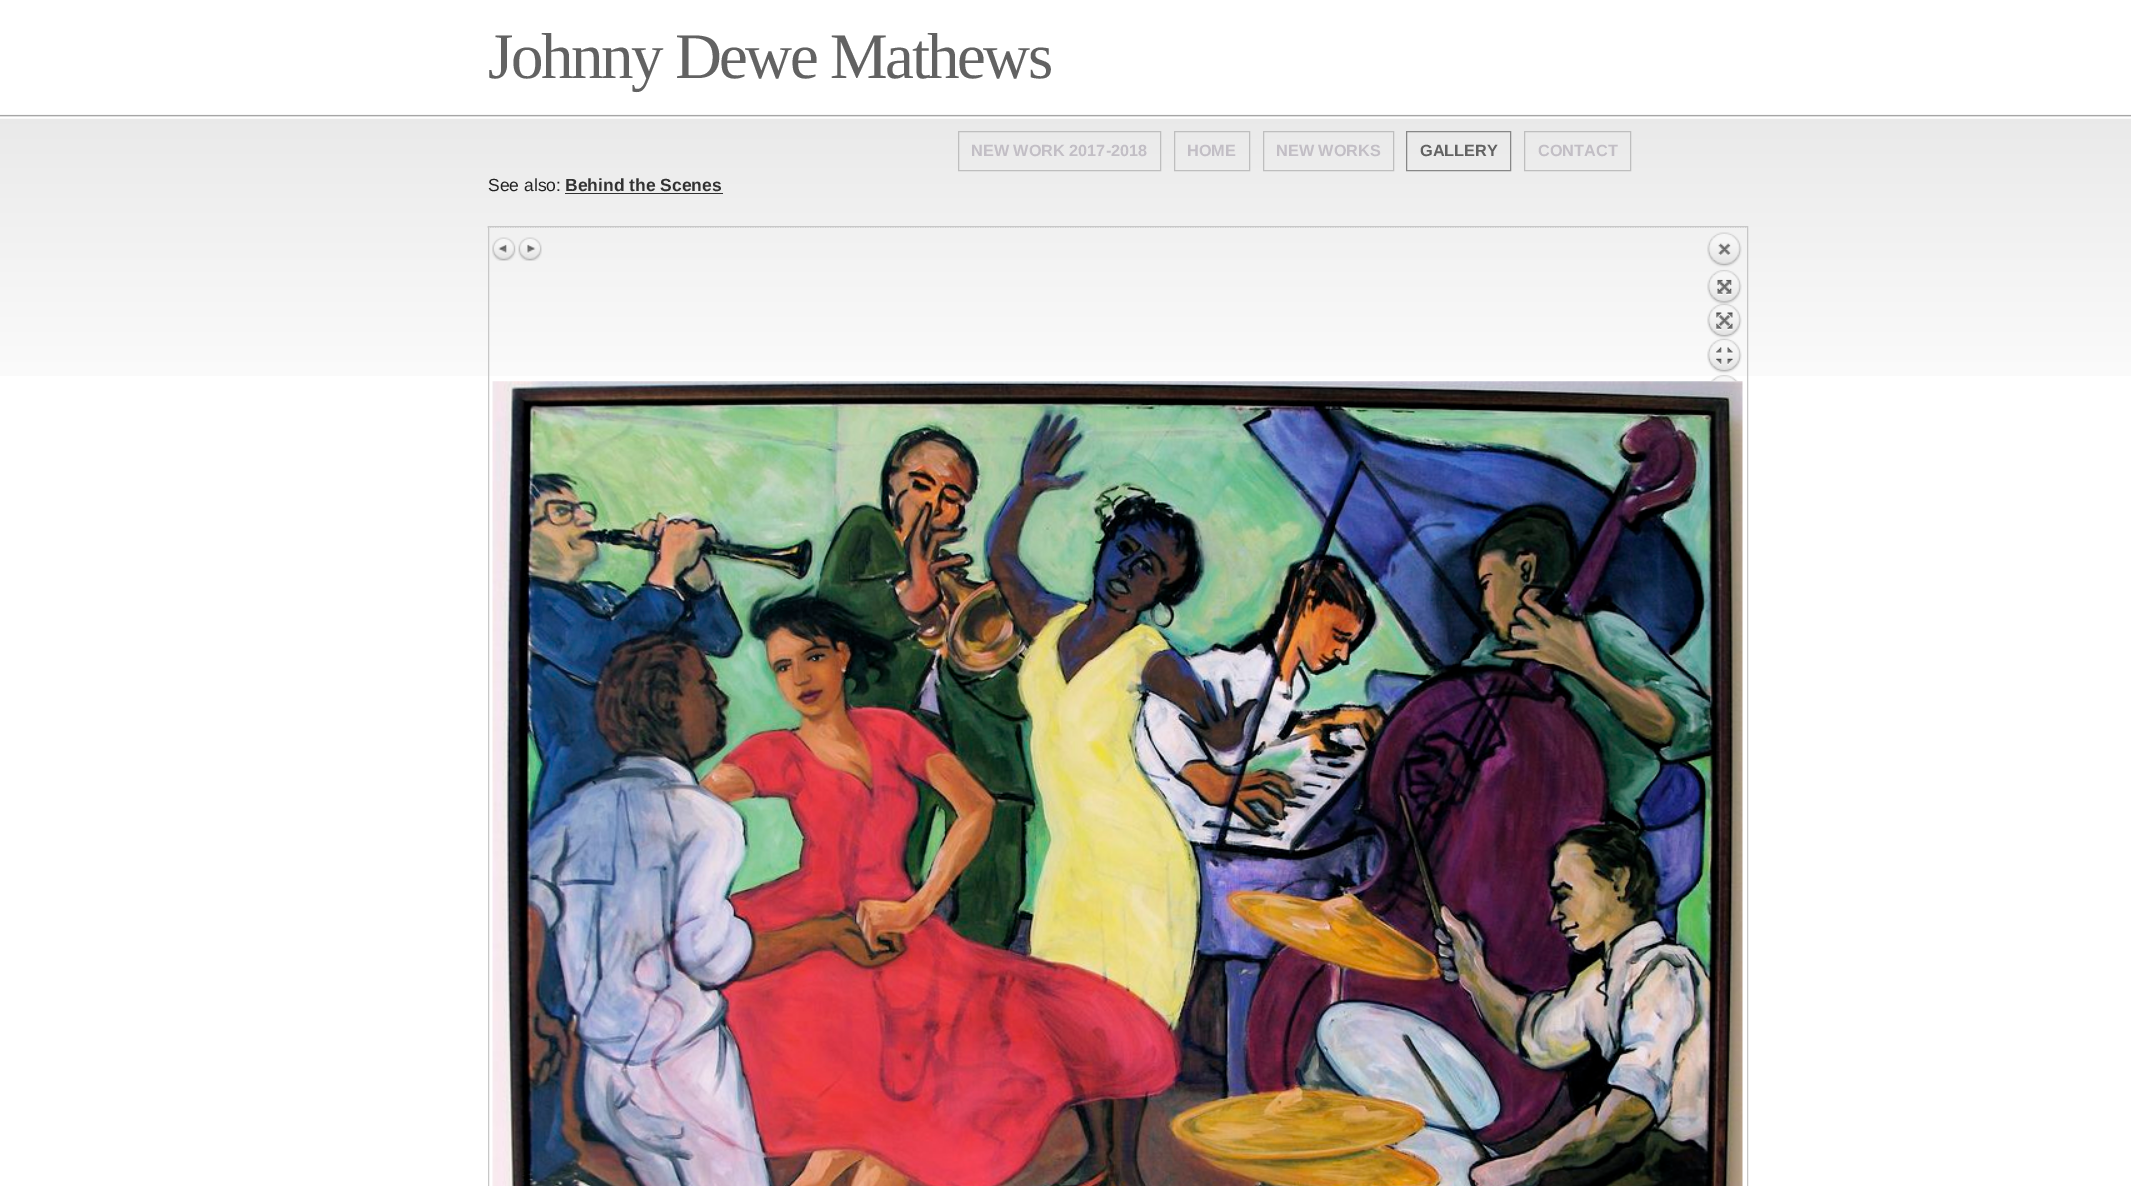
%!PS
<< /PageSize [2131 1186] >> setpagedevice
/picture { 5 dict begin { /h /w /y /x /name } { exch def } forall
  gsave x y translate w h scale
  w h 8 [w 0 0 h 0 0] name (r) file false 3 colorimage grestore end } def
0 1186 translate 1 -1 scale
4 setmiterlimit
1 setgray
0 0 2131 1186 rectfill
(img1.rgb) 0 114 2131 262 picture
/LiberationSerif-Regular [65 0 0 -65 0 0] selectfont
0.384 setgray
488 78 moveto -2.5 0 (Johnny Dewe Mathews) ashow
0.745 setgray
958.5 131.5 202 39 rectstroke
/LiberationSans-Bold [16.25 0 0 -16.25 0 0] selectfont
0.761 0.745 0.773 setrgbcolor
971 156 moveto (NEW WORK 2017-2018) show
0.745 setgray
1174.5 131.5 75 39 rectstroke
0.761 0.745 0.773 setrgbcolor
1187 156 moveto (HOME) show
0.745 setgray
1263.5 131.5 130 39 rectstroke
0.761 0.745 0.773 setrgbcolor
1276 156 moveto (NEW WORKS) show
0.529 setgray
1406.5 131.5 104 39 rectstroke
0.384 setgray
1420 156 moveto (GALLERY) show
0.745 setgray
1524.5 131.5 106 39 rectstroke
0.761 0.745 0.773 setrgbcolor
1538 156 moveto (CONTACT) show
/LiberationSans-Regular [17.5 0 0 -17.5 0 0] selectfont
0.133 setgray
488 191 moveto (See also:) show
/LiberationSans-Bold [17.5 0 0 -17.5 0 0] selectfont
0.196 setgray
565 191 moveto (Behind the Scenes) show
565 193 158 1 rectfill
0.8 setgray
1.2 setlinewidth
[1.25 1.25] 0 setdash
newpath 487.5 227 moveto 1747.5 227 lineto stroke
0.78 setgray
1 setlinewidth
[] 0 setdash
488.5 226.5 1259 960 rectstroke
(img2.rgb) 492 237 24 24 picture
(img3.rgb) 518 237 24 24 picture
(img5.rgb) 492 381 1251 805 picture
(img4.rgb) 1707 232 35 150 picture
showpage
